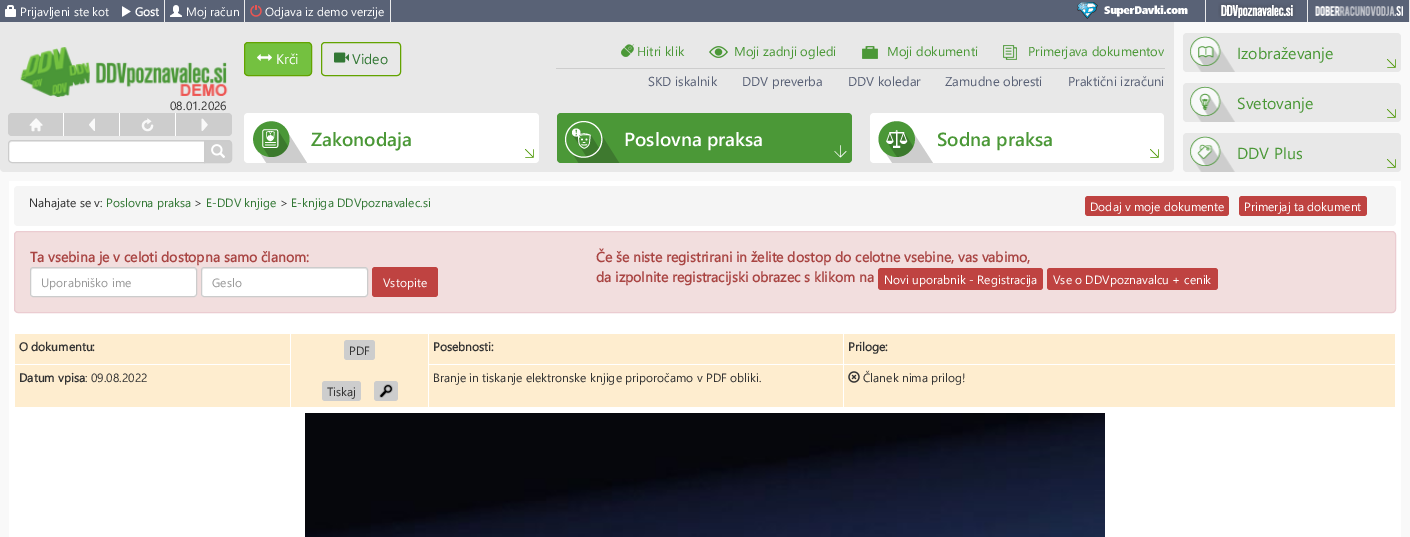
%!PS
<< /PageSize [1410 537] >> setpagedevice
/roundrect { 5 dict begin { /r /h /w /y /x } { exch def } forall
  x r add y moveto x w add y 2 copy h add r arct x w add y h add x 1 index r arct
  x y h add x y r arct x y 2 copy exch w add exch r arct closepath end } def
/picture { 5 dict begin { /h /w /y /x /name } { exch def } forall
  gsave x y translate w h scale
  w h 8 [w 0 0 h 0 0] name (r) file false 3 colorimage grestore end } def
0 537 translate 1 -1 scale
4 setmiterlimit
0.976 setgray
0 0 1410 537 rectfill
0.349 0.384 0.463 setrgbcolor
0 0 1409 22 rectfill
(img1.rgb) 5 5 11 12 picture
/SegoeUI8-Regular [12 0 0 -12 0 0] selectfont
1 setgray
20 16 moveto (Prijavljeni ste kot) show
0.922 setgray
164 0 1 22 rectfill
(img2.rgb) 122 6 9 11 picture
/SegoeUI8-Bold [12 0 0 -12 0 0] selectfont
1 setgray
135 16 moveto (Gost) show
0.922 setgray
244 0 1 22 rectfill
(img3.rgb) 170 5 12 12 picture
/SegoeUI8-Regular [12 0 0 -12 0 0] selectfont
1 setgray
186 16 moveto (Moj račun) show
0.922 setgray
390 0 1 22 rectfill
(img4.rgb) 250 5 12 12 picture
1 setgray
265 16 moveto (Odjava iz demo verzije) show
(img5.rgb) 1077 2 111 17 picture
0.922 setgray
1205 0 1 22 rectfill
(img6.rgb) 1218 2 78 18 picture
1307 0 1 22 rectfill
(img7.rgb) 1315 6 88 10 picture
1409 0 1 22 rectfill
0.91 setgray
newpath 0 22 moveto 1174 22 lineto 1174 168 lineto 1174 170 1172 172 1170 172 curveto 4 172 lineto 2 172 0 170 0 168 curveto closepath fill
(img8.rgb) 20 47 208 50 picture
0.2 setgray
170 110 moveto (08.01.2026) show
0.804 setgray
8 113 224 23 4 roundrect fill
(img9.rgb) 29 118 14 14 picture
1 setgray
63 113 1 23 rectfill
(img10.rgb) 89 118 6 13 picture
119 113 1 23 rectfill
(img11.rgb) 141 118 13 14 picture
175 113 1 23 rectfill
(img12.rgb) 201 118 7 13 picture
newpath 12 140 moveto 205 140 lineto 205 163 lineto 12 163 lineto 10 163 8 161 8 159 curveto 8 144 lineto 8 142 10 140 12 140 curveto closepath fill
0.925 setgray
newpath 12 142 moveto 204 142 lineto 204 141 lineto 12 141 lineto 10 141 9 143 9 145 curveto 9 143 10 142 12 142 curveto closepath fill
0.8 setgray
newpath 12 140.5 moveto 204.5 140.5 lineto 204.5 162.5 lineto 12 162.5 lineto 10 162.5 8.5 161 8.5 159 curveto 8.5 144 lineto 8.5 142 10 140.5 12 140.5 curveto closepath stroke
0.804 setgray
newpath 204.5 140.5 moveto 228 140.5 lineto 230 140.5 231.5 142 231.5 144 curveto 231.5 159 lineto 231.5 161 230 162.5 228 162.5 curveto 204.5 162.5 lineto closepath gsave fill grestore
0.8 setgray
stroke
(img13.rgb) 211 144 14 14 picture
0.455 0.757 0.251 setrgbcolor
244.5 42.5 67 33 3.5 roundrect gsave fill grestore
0.388 0.639 0 setrgbcolor
stroke
(img14.rgb) 257 54 15 7 picture
/SegoeUI8-Regular [14 0 0 -14 0 0] selectfont
1 setgray
276 64 moveto (Krči) show
0.388 0.639 0 setrgbcolor
321.5 42.5 79 33 3.5 roundrect stroke
(img15.rgb) 334 52 15 11 picture
0.196 0.467 0.204 setrgbcolor
352 64 moveto (Video) show
(img16.rgb) 621 44 13 13 picture
/SegoeUI8-Regular [13 0 0 -13 0 0] selectfont
0.294 0.596 0.216 setrgbcolor
637 56 moveto (Hitri klik) show
(img17.rgb) 709 46 19 12 picture
734 56 moveto (Moji zadnji ogledi) show
(img18.rgb) 862 46 16 13 picture
887 56 moveto (Moji dokumenti) show
(img19.rgb) 1003 45 14 15 picture
1028 56 moveto (Primerjava dokumentov) show
0.804 setgray
556 68 609 1 rectfill
0.349 0.38 0.463 setrgbcolor
648 86 moveto (SKD iskalnik) show
742 86 moveto (DDV preverba) show
848 86 moveto (DDV koledar) show
945 86 moveto (Zamudne obresti) show
1068 86 moveto (Praktični izračuni) show
1 setgray
244 113 295 50 4 roundrect fill
(img20.rgb) 253 121 54 42 picture
(img21.rgb) 525 149 9 9 picture
/SegoeUI-SemiBold [19 0 0 -19 0 0] selectfont
0.294 0.596 0.216 setrgbcolor
311 146 moveto (Zakonodaja) show
557 113 295 50 4 roundrect fill
(img22.rgb) 565 121 55 42 picture
(img23.rgb) 834 145 13 13 picture
1 setgray
624 146 moveto (Poslovna praksa) show
870 113 294 50 4 roundrect fill
(img24.rgb) 878 121 55 42 picture
(img21.rgb) 1150 149 9 9 picture
0.294 0.596 0.216 setrgbcolor
937 146 moveto (Sodna praksa) show
0.91 setgray
1183 33 218 39 4 roundrect fill
(img25.rgb) 1190 36 45 36 picture
(img26.rgb) 1387 59 9 9 picture
/SegoeUI8-Regular [16 0 0 -16 0 0] selectfont
0.294 0.596 0.216 setrgbcolor
1237 59 moveto (Izobraževanje) show
0.91 setgray
1183 83 218 39 4 roundrect fill
(img27.rgb) 1190 86 45 36 picture
(img26.rgb) 1387 109 9 9 picture
0.294 0.596 0.216 setrgbcolor
1237 109 moveto (Svetovanje) show
0.91 setgray
1183 133 218 39 4 roundrect fill
(img28.rgb) 1190 136 45 36 picture
(img26.rgb) 1387 159 9 9 picture
0.294 0.596 0.216 setrgbcolor
1237 159 moveto (DDV Plus) show
1 setgray
9 181 1392 356 rectfill
0.961 setgray
14 186 1382 40 4 roundrect fill
/SegoeUI8-Regular [12 0 0 -12 0 0] selectfont
0.2 setgray
29 207 moveto (Nahajate se v:) show
0.196 0.467 0.204 setrgbcolor
106 207 moveto (Poslovna praksa) show
0.2 setgray
194 207 moveto (>) show
0.196 0.467 0.204 setrgbcolor
206 207 moveto (E-DDV knjige) show
0.2 setgray
280 207 moveto (>) show
0.196 0.467 0.204 setrgbcolor
291 207 moveto (E-knjiga DDVpoznavalec.si) show
0.749 0.263 0.255 setrgbcolor
1085 196 144 20 3 roundrect fill
1 setgray
1090 211 moveto (Dodaj v moje dokumente) show
0.749 0.263 0.255 setrgbcolor
1239 196 128 20 3 roundrect fill
1 setgray
1244 211 moveto (Primerjaj ta dokument) show
0.949 0.871 0.871 setrgbcolor
14.5 231.5 1381 81 3.5 roundrect gsave fill grestore
0.922 0.8 0.82 setrgbcolor
stroke
/SegoeUI8-Bold [14 0 0 -14 0 0] selectfont
0.663 0.267 0.259 setrgbcolor
30 262 moveto (Ta vsebina je v celoti dostopna samo članom:) show
1 setgray
30 267 167 30 3 roundrect fill
0.925 setgray
newpath 33 269 moveto 194 269 lineto 195 269 196 270 196 271 curveto 196 270 196 268 194 268 curveto 33 268 lineto 31 268 31 270 31 271 curveto 31 270 32 269 33 269 curveto closepath fill
0.8 setgray
30.5 267.5 166 29 2.5 roundrect stroke
/SegoeUI8-Regular [12 0 0 -12 0 0] selectfont
0.6 setgray
41 287 moveto (Uporabniško ime) show
1 setgray
201 267 167 30 3 roundrect fill
0.925 setgray
newpath 204 269 moveto 365 269 lineto 366 269 367 270 367 271 curveto 367 270 367 268 365 268 curveto 204 268 lineto 202 268 202 270 202 271 curveto 202 270 203 269 204 269 curveto closepath fill
0.8 setgray
201.5 267.5 166 29 2.5 roundrect stroke
0.6 setgray
212 287 moveto (Geslo) show
0.749 0.263 0.255 setrgbcolor
372 267 66 30 3 roundrect fill
1 setgray
383 287 moveto (Vstopite) show
/SegoeUI8-Bold [14 0 0 -14 0 0] selectfont
0.663 0.267 0.259 setrgbcolor
596 262 moveto (Če še niste registrirani in želite dostop do celotne vsebine, vas vabimo,) show
596 282 moveto (da izpolnite registracijski obrazec s klikom na) show
0.749 0.263 0.255 setrgbcolor
878 268 165 22 3 roundrect fill
/SegoeUI8-Regular [12 0 0 -12 0 0] selectfont
1 setgray
884 284 moveto (Novi uporabnik - Registracija) show
0.749 0.263 0.255 setrgbcolor
1047 268 171 22 3 roundrect fill
1 setgray
1053 284 moveto (Vse o DDVpoznavalcu + cenik) show
0.996 0.929 0.812 setrgbcolor
15 334 1380 73 rectfill
/SegoeUI8-Bold [12 0 0 -12 0 0] selectfont
0.2 setgray
19 351 moveto (O dokumentu:) show
1 setgray
14 364 277 1 rectfill
290 333 1 75 rectfill
0.804 setgray
344 340 31 20 3 roundrect fill
/SegoeUI8-Regular [12 0 0 -12 0 0] selectfont
0.2 setgray
349 355 moveto (PDF) show
0.804 setgray
322 381 39 20 3 roundrect fill
0.2 setgray
327 396 moveto (Tiskaj) show
0.804 setgray
374 381 24 20 3 roundrect fill
(img29.rgb) 379 384 14 14 picture
/SegoeUI8-Bold [12 0 0 -12 0 0] selectfont
0.2 setgray
433 351 moveto (Posebnosti:) show
1 setgray
843 364 553 1 rectfill
843 364 1 44 rectfill
428 364 416 1 rectfill
843 333 1 32 rectfill
0.2 setgray
848 351 moveto (Priloge:) show
19 382 moveto (Datum vpisa) show
/SegoeUI8-Regular [12 0 0 -12 0 0] selectfont
85 382 moveto (: 09.08.2022) show
1 setgray
428 333 1 75 rectfill
0.2 setgray
433 382 moveto (Branje in tiskanje elektronske knjige priporočamo v PDF obliki.) show
(img30.rgb) 848 371 12 12 picture
863 382 moveto (Članek nima prilog!) show
(img31.rgb) 305 413 800 124 picture
showpage
